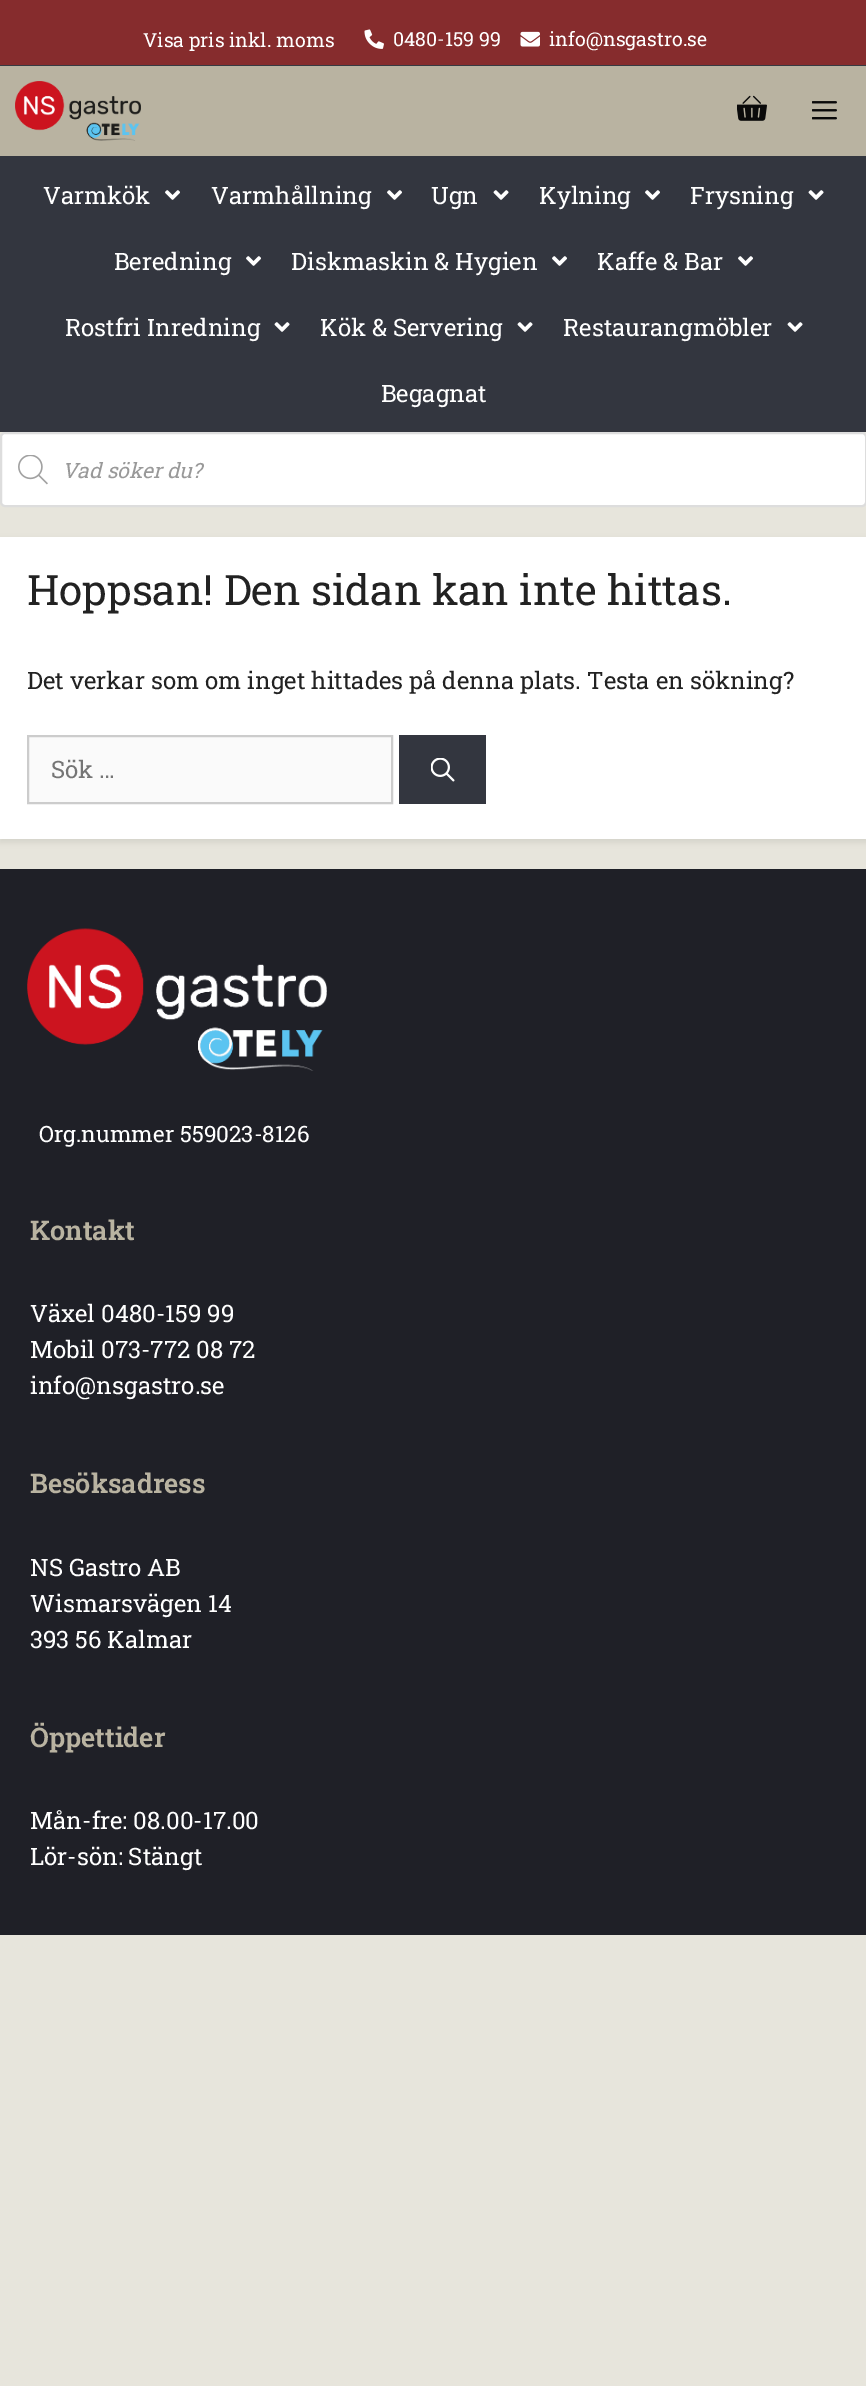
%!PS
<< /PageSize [866 2386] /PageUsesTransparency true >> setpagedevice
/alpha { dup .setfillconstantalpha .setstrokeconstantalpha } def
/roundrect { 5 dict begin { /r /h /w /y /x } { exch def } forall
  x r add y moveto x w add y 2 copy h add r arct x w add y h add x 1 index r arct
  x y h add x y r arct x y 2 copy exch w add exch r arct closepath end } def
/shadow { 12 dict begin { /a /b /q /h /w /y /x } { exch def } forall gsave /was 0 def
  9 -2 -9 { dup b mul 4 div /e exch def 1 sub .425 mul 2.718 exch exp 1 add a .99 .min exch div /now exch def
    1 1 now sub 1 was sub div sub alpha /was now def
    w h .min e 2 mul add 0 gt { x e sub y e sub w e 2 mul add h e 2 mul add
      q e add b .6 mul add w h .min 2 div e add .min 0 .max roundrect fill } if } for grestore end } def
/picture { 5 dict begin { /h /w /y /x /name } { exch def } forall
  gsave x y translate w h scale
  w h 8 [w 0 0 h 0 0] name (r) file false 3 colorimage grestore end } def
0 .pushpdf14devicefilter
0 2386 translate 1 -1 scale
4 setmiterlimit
0.906 0.898 0.863 setrgbcolor
0 0 866 2386 rectfill
0.525 0.173 0.176 setrgbcolor
0 0 866 65 rectfill
0.216 0.227 0.259 setrgbcolor
0 65 866 1 rectfill
/RobotoSlab-Regular [19.5 0 0 -19.5 0 0] selectfont
1 setgray
143 47 moveto (Visa pris inkl. moms) show
(img1.rgb) 364 29 20 20 picture
393 46 moveto (0480-159 99) show
(img2.rgb) 520 31 20 16 picture
549 46 moveto (info@nsgastro.se) show
0.725 0.702 0.631 setrgbcolor
0 66 866 90 rectfill
(img3.rgb) 15 81 126 60 picture
(img4.rgb) 737 95 30 26 picture
(img5.rgb) 812 101 25 19 picture
0.2 0.212 0.247 setrgbcolor
0 156 866 276 rectfill
/RobotoSlab-Regular [24 0 0 -24 0 0] selectfont
1 setgray
43 204 moveto (Varmkök) show
(img6.rgb) 165 190 15 10 picture
211 204 moveto (Varmhållning) show
(img6.rgb) 387 190 15 10 picture
431 204 moveto (Ugn) show
(img7.rgb) 493 190 16 10 picture
539 204 moveto (Kylning) show
(img6.rgb) 645 190 15 10 picture
690 204 moveto (Frysning) show
(img7.rgb) 808 190 16 10 picture
114 270 moveto (Beredning) show
(img6.rgb) 246 256 15 10 picture
291 270 moveto (Diskmaskin & Hygien) show
(img6.rgb) 552 256 15 10 picture
597 270 moveto (Kaffe & Bar) show
(img6.rgb) 738 256 15 10 picture
65 336 moveto (Rostfri Inredning) show
(img7.rgb) 274 322 16 10 picture
320 336 moveto (Kök & Servering) show
(img7.rgb) 517 322 16 10 picture
563 336 moveto (Restaurangmöbler) show
(img7.rgb) 787 322 16 10 picture
381 402 moveto (Begagnat) show
1 433 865 73 4 roundrect gsave fill grestore
0.867 setgray
2 setlinewidth
stroke
(img8.rgb) 18 455 30 30 picture
/RobotoSlab-Italic [21 0 0 -21 0 0] selectfont
0.6 setgray
62 478 moveto (Vad söker du?) show
0 setgray
0 540 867 302 0 3 0.08 shadow
1 setgray
0 537 866 302 rectfill
/RobotoSlab-Regular [42 0 0 -42 0 0] selectfont
0.133 setgray
27 605 moveto (Hoppsan! Den sidan kan inte hittas.) show
/RobotoSlab-Regular [24 0 0 -24 0 0] selectfont
27 689 moveto (Det verkar som om inget hittades på denna plats. Testa en sökning?) show
0.98 setgray
newpath 28 736 moveto 392 736 lineto 392 803 lineto 28 803 lineto closepath gsave fill grestore
0.8 setgray
stroke
0.459 setgray
51 778 moveto (Sök …) show
0.2 0.212 0.247 setrgbcolor
399 735 87 69 rectfill
(img9.rgb) 431 758 24 24 picture
0.122 0.125 0.153 setrgbcolor
0 869 866 1066 rectfill
(img10.rgb) 27 928 300 143 picture
/RobotoSlab-Regular [22.5 0 0 -22.5 0 0] selectfont
1 setgray
39 1142 moveto (Org.nummer 559023-8126) show
/RobotoSlab-SemiBold [27 0 0 -27 0 0] selectfont
0.725 0.702 0.631 setrgbcolor
30 1240 moveto (Kontakt) show
/RobotoSlab-Regular [24 0 0 -24 0 0] selectfont
1 setgray
30 1322 moveto (Växel 0480-159 99) show
30 1358 moveto (Mobil 073-772 08 72) show
30 1394 moveto (info@nsgastro.se) show
/RobotoSlab-SemiBold [27 0 0 -27 0 0] selectfont
0.725 0.702 0.631 setrgbcolor
30 1493 moveto (Besöksadress) show
/RobotoSlab-Regular [24 0 0 -24 0 0] selectfont
1 setgray
30 1576 moveto (NS Gastro AB) show
30 1612 moveto (Wismarsvägen 14) show
30 1648 moveto (393 56 Kalmar) show
/RobotoSlab-SemiBold [27 0 0 -27 0 0] selectfont
0.725 0.702 0.631 setrgbcolor
30 1747 moveto (Öppettider) show
/RobotoSlab-Regular [24 0 0 -24 0 0] selectfont
1 setgray
30 1829 moveto (Mån-fre: 08.00-17.00) show
30 1865 moveto (Lör-sön: Stängt) show
.poppdf14devicefilter showpage
